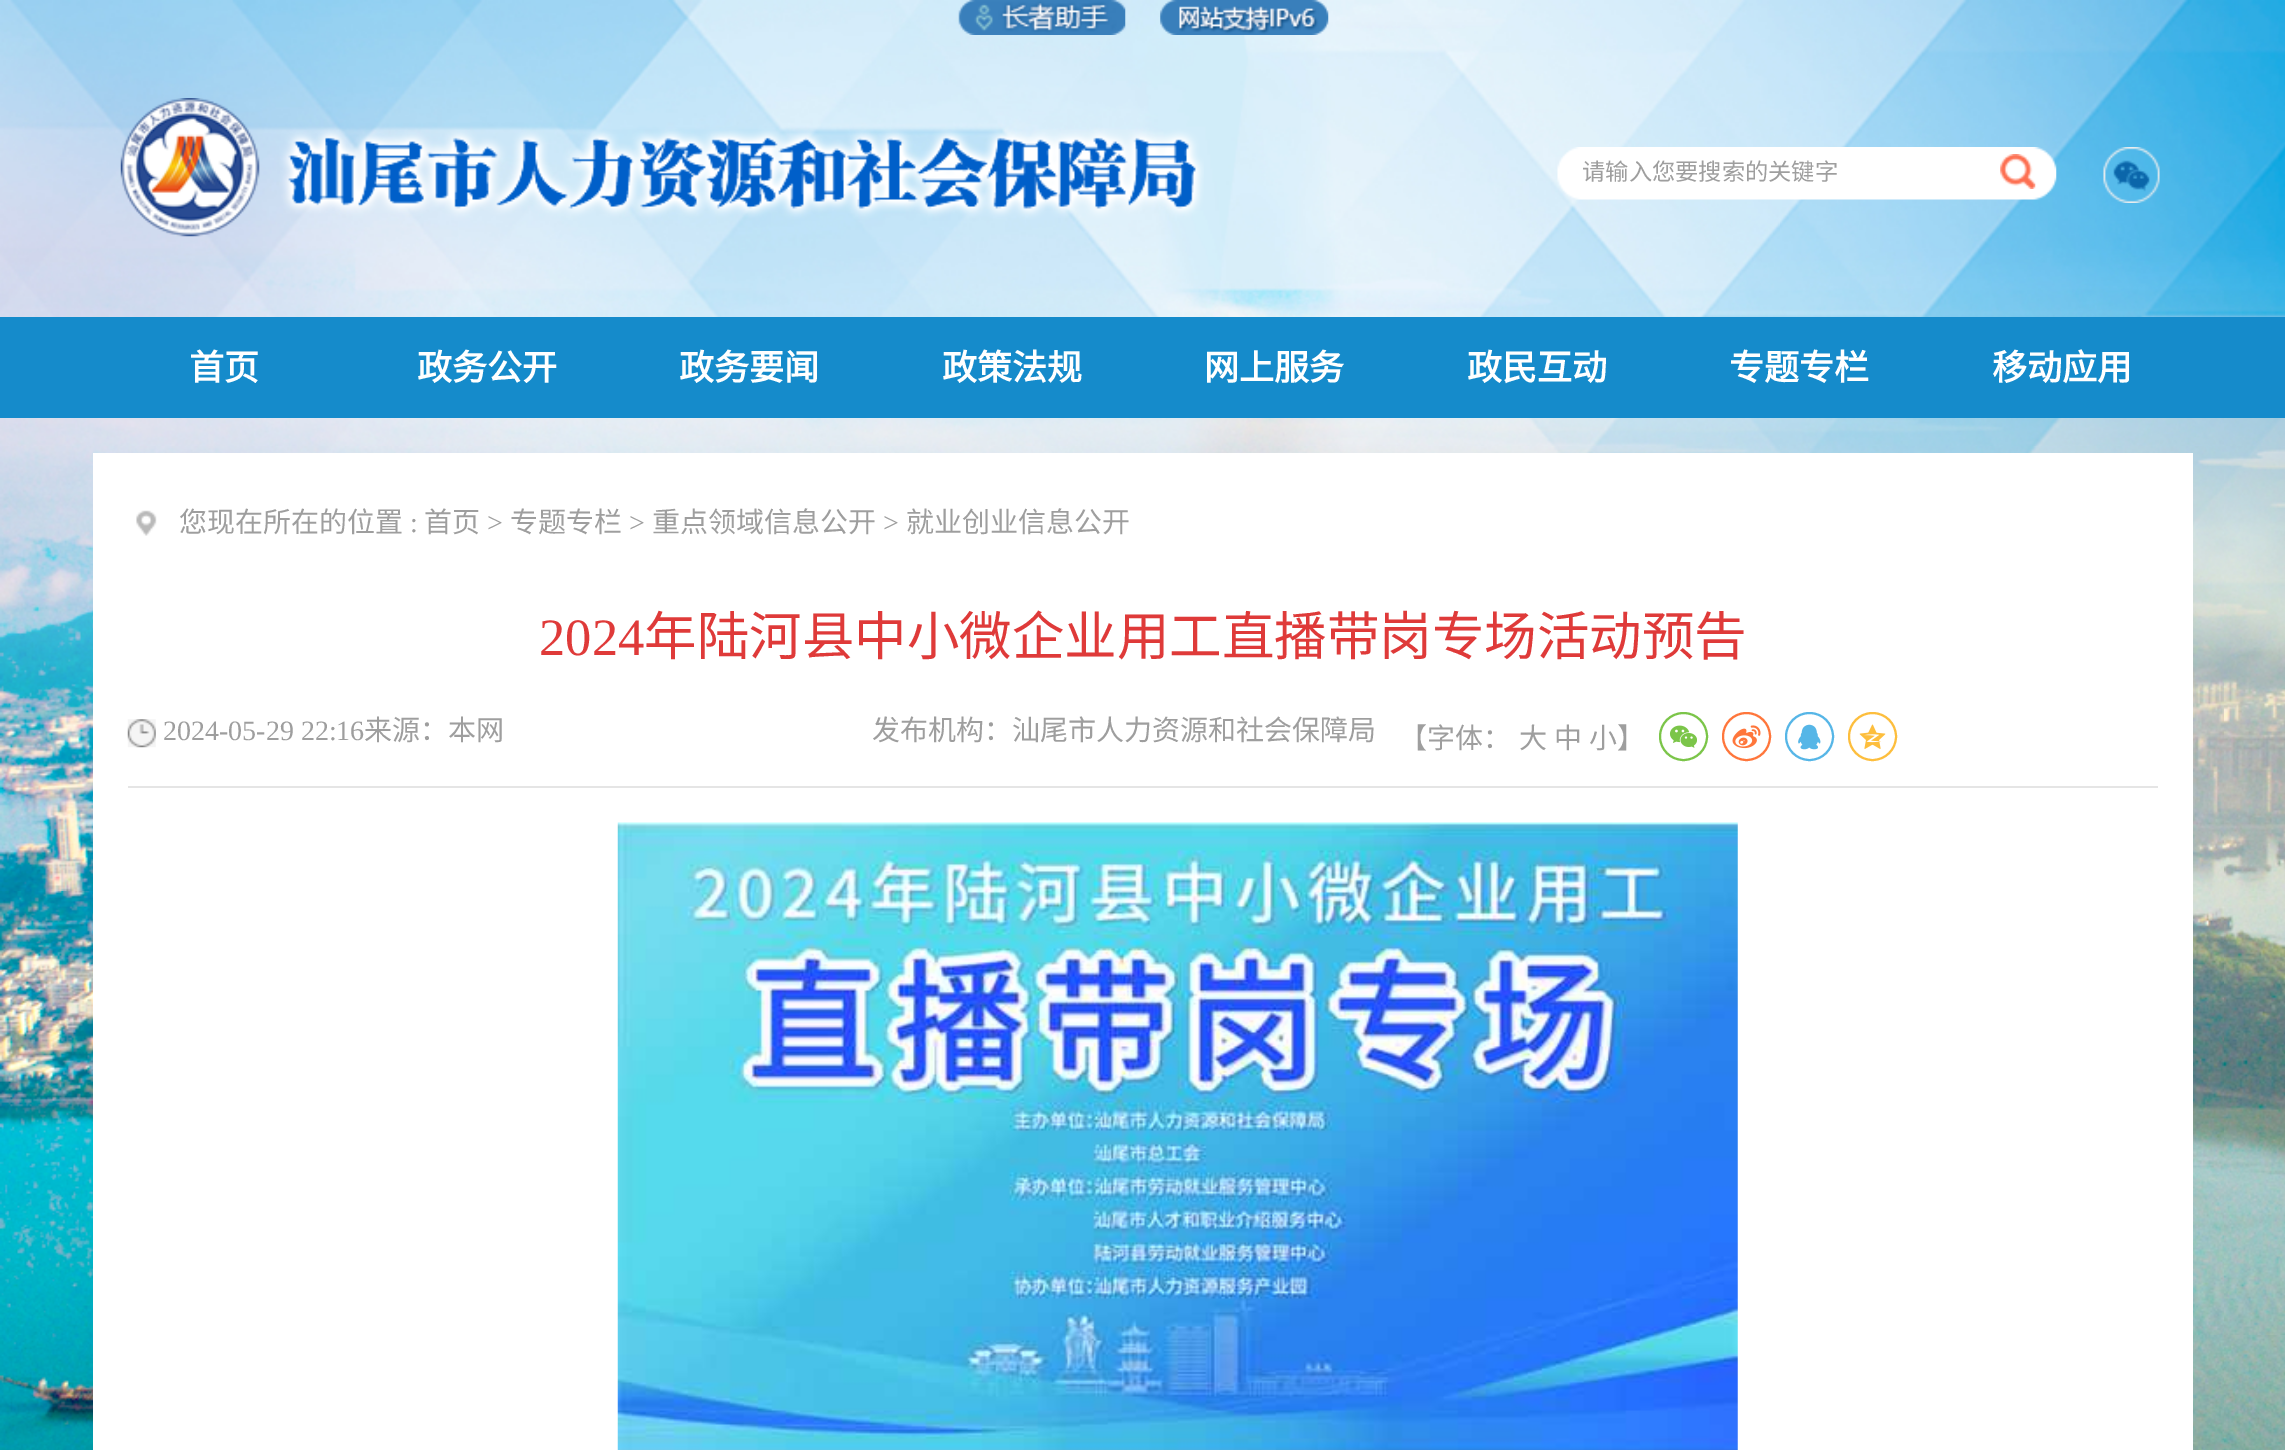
%!PS
<< /PageSize [2285 1450] >> setpagedevice
/picture { 5 dict begin { /h /w /y /x /name } { exch def } forall
  gsave x y translate w h scale
  w h 8 [w 0 0 h 0 0] name (r) file false 3 colorimage grestore end } def
0 1450 translate 1 -1 scale
4 setmiterlimit
1 setgray
0 0 2285 1450 rectfill
(img1.rgb) 0 0 2285 1450 picture
(img2.rgb) 958 0 168 35 picture
(img3.rgb) 1160 0 169 35 picture
(img4.rgb) 120 98 1084 139 picture
(img5.rgb) 1557 147 500 53 picture
/NotoSansCJKSC-Regular [23.25 0 0 -23.25 0 0] selectfont
0.62 setgray
1582 180 moveto (请输入您要搜索的关键字) show
(img6.rgb) 2000 154 36 35 picture
(img7.rgb) 2103 147 57 56 picture
0.082 0.545 0.796 setrgbcolor
0 317 2285 101 rectfill
/NotoSansCJKSC-Bold [35 0 0 -35 0 0] selectfont
1 setgray
189 380 moveto (首页) show
417 380 moveto (政务公开) show
679 380 moveto (政务要闻) show
942 380 moveto (政策法规) show
1204 380 moveto (网上服务) show
1467 380 moveto (政民互动) show
1729 380 moveto (专题专栏) show
1992 380 moveto (移动应用) show
93 453 2100 997 rectfill
(img8.rgb) 136 510 21 26 picture
/NotoSansCJKSC-Regular [28 0 0 -28 0 0] selectfont
0.62 setgray
179 532 moveto (您现在所在的位置) show
/LiberationSerif-Regular [28 0 0 -28 0 0] selectfont
410 532 moveto (:) show
/NotoSansCJKSC-Regular [28 0 0 -28 0 0] selectfont
424 532 moveto (首页) show
/LiberationSerif-Regular [28 0 0 -28 0 0] selectfont
487 532 moveto (>) show
/NotoSansCJKSC-Regular [28 0 0 -28 0 0] selectfont
510 532 moveto (专题专栏) show
/LiberationSerif-Regular [28 0 0 -28 0 0] selectfont
629 532 moveto (>) show
/NotoSansCJKSC-Regular [28 0 0 -28 0 0] selectfont
652 532 moveto (重点领域信息公开) show
/LiberationSerif-Regular [28 0 0 -28 0 0] selectfont
883 532 moveto (>) show
/NotoSansCJKSC-Regular [28 0 0 -28 0 0] selectfont
906 532 moveto (就业创业信息公开) show
/LiberationSerif-Regular [52.5 0 0 -52.5 0 0] selectfont
0.875 0.227 0.224 setrgbcolor
539 655 moveto (2024) show
/NotoSansCJKSC-Regular [52.5 0 0 -52.5 0 0] selectfont
644 655 moveto (年陆河县中小微企业用工直播带岗专场活动预告) show
0.898 setgray
128 786 2030 2 rectfill
(img9.rgb) 127 719 29 29 picture
/LiberationSerif-Regular [28 0 0 -28 0 0] selectfont
0.62 setgray
163 740 moveto (2024-05-29 22:16) show
/NotoSansCJKSC-Regular [28 0 0 -28 0 0] selectfont
364 740 moveto (来源：本网) show
872 740 moveto (发布机构：汕尾市人力资源和社会保障局) show
1399 748 moveto (【字体：) show
1519 748 moveto (大) show
1554 748 moveto (中) show
1589 748 moveto (小】) show
0.482 0.773 0.286 setrgbcolor
2 setlinewidth
newpath 1683.5 736.5 23.5 0 360 arc closepath stroke
(img10.rgb) 1669 725 28 23 picture
1 0.463 0.231 setrgbcolor
newpath 1746.5 736.5 23.5 0 360 arc closepath stroke
(img11.rgb) 1732 725 29 24 picture
0.337 0.714 0.906 setrgbcolor
newpath 1809.5 736.5 23.5 0 360 arc closepath stroke
(img12.rgb) 1798 724 23 26 picture
0.992 0.745 0.239 setrgbcolor
newpath 1872.5 736.5 23.5 0 360 arc closepath stroke
(img13.rgb) 1859 724 27 25 picture
(img14.rgb) 617 822 1121 628 picture
showpage
